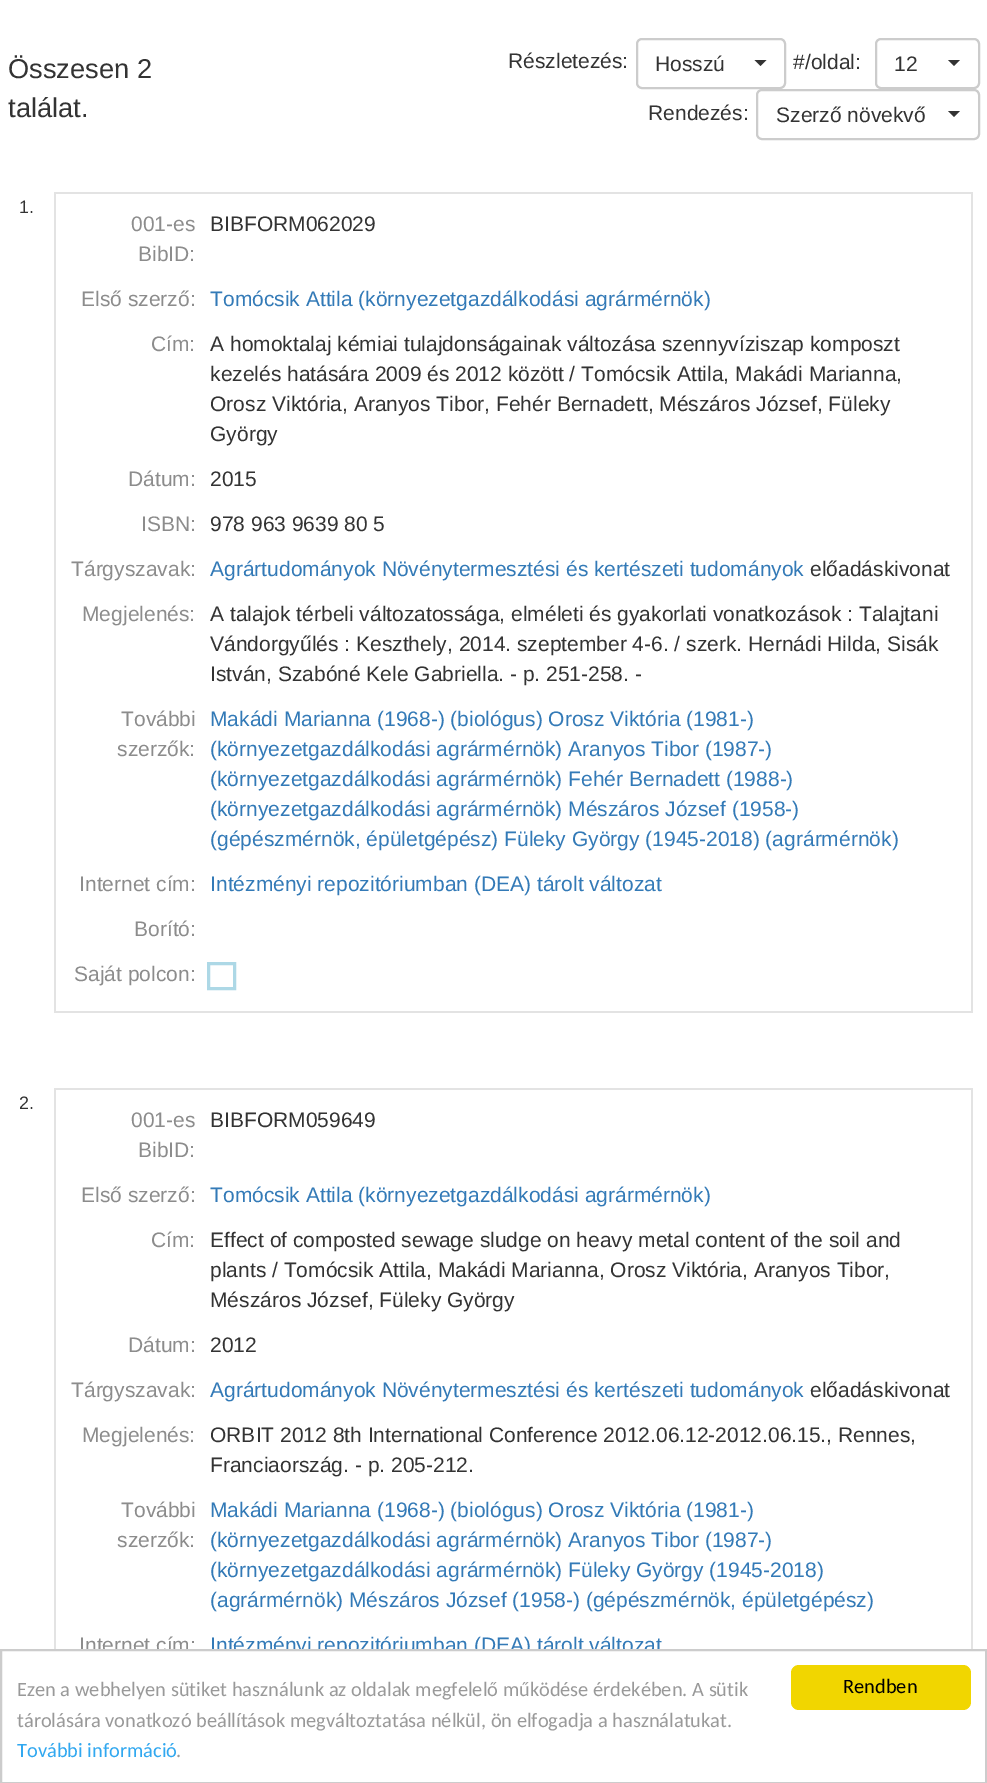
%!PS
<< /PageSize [987 1783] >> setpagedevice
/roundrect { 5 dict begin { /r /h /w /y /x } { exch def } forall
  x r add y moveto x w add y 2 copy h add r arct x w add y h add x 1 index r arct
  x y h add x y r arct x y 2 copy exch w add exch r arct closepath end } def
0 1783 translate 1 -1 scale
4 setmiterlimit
1 setgray
0 0 987 1783 rectfill
/LiberationSans-Regular [27.25 0 0 -27.25 0 0] selectfont
0.2 setgray
8 78 moveto (Összesen 2) show
8 117 moveto (találat.) show
/LiberationSans-Regular [21 0 0 -21 0 0] selectfont
508 68 moveto (Részletezés:) show
0.8 setgray
2 setlinewidth
637 39 148 49 5 roundrect stroke
0.2 setgray
655 71 moveto (Hosszú) show
newpath 754.5 60 moveto 766.5 60 lineto 760.5 66 lineto closepath fill
793 69 moveto (#/oldal:) show
0.8 setgray
876 39 103 49 5 roundrect stroke
0.2 setgray
894 71 moveto (12) show
newpath 948 60 moveto 960 60 lineto 954 66 lineto closepath fill
648 120 moveto (Rendezés:) show
0.8 setgray
757 90 222 49 5 roundrect stroke
0.2 setgray
776 122 moveto (Szerző növekvő) show
newpath 948 111 moveto 960 111 lineto 954 117 lineto closepath fill
/LiberationSans-Regular [18 0 0 -18 0 0] selectfont
19 213 moveto (1.) show
0.89 setgray
54 192 918 2 rectfill
971 192 2 821 rectfill
54 1011 918 2 rectfill
54 192 2 821 rectfill
/LiberationSans-Regular [21 0 0 -21 0 0] selectfont
0.549 setgray
131 231 moveto (001-es) show
138 261 moveto (BibID:) show
0.2 setgray
210 231 moveto (BIBFORM062029) show
0.549 setgray
81 306 moveto (Első szerző:) show
0.2 0.478 0.718 setrgbcolor
210 306 moveto (Tomócsik Attila \(környezetgazdálkodási agrármérnök\)) show
0.549 setgray
151 351 moveto (Cím:) show
0.2 setgray
210 351 moveto (A homoktalaj kémiai tulajdonságainak változása szennyvíziszap komposzt) show
210 381 moveto (kezelés hatására 2009 és 2012 között / Tomócsik Attila, Makádi Marianna,) show
210 411 moveto (Orosz Viktória, Aranyos Tibor, Fehér Bernadett, Mészáros József, Füleky) show
210 441 moveto (György) show
0.549 setgray
128 486 moveto (Dátum:) show
0.2 setgray
210 486 moveto (2015) show
0.549 setgray
141 531 moveto (ISBN:) show
0.2 setgray
210 531 moveto (978 963 9639 80 5) show
0.549 setgray
71 576 moveto (Tárgyszavak:) show
0.2 0.478 0.718 setrgbcolor
210 576 moveto (Agrártudományok Növénytermesztési és kertészeti tudományok) show
0.2 setgray
810 576 moveto (előadáskivonat) show
0.549 setgray
82 621 moveto (Megjelenés:) show
0.2 setgray
210 621 moveto (A talajok térbeli változatossága, elméleti és gyakorlati vonatkozások : Talajtani) show
210 651 moveto (Vándorgyűlés : Keszthely, 2014. szeptember 4-6. / szerk. Hernádi Hilda, Sisák) show
210 681 moveto (István, Szabóné Kele Gabriella. - p. 251-258. -) show
0.549 setgray
121 726 moveto (További) show
117 756 moveto (szerzők:) show
0.2 0.478 0.718 setrgbcolor
210 726 moveto (Makádi Marianna \(1968-\) \(biológus\) Orosz Viktória \(1981-\)) show
210 756 moveto (\(környezetgazdálkodási agrármérnök\) Aranyos Tibor \(1987-\)) show
210 786 moveto (\(környezetgazdálkodási agrármérnök\) Fehér Bernadett \(1988-\)) show
210 816 moveto (\(környezetgazdálkodási agrármérnök\) Mészáros József \(1958-\)) show
210 846 moveto (\(gépészmérnök, épületgépész\) Füleky György \(1945-2018\) \(agrármérnök\)) show
0.549 setgray
79 891 moveto (Internet cím:) show
0.2 0.478 0.718 setrgbcolor
210 891 moveto (Intézményi repozitóriumban \(DEA\) tárolt változat) show
0.549 setgray
134 936 moveto (Borító:) show
74 981 moveto (Saját polcon:) show
0.678 0.847 0.902 setrgbcolor
3 setlinewidth
208.5 963.5 26 25 rectstroke
/LiberationSans-Regular [18 0 0 -18 0 0] selectfont
0.2 setgray
19 1109 moveto (2.) show
0.89 setgray
54 1088 918 2 rectfill
971 1088 2 561 rectfill
54 1088 2 561 rectfill
/LiberationSans-Regular [21 0 0 -21 0 0] selectfont
0.549 setgray
131 1127 moveto (001-es) show
138 1157 moveto (BibID:) show
0.2 setgray
210 1127 moveto (BIBFORM059649) show
0.549 setgray
81 1202 moveto (Első szerző:) show
0.2 0.478 0.718 setrgbcolor
210 1202 moveto (Tomócsik Attila \(környezetgazdálkodási agrármérnök\)) show
0.549 setgray
151 1247 moveto (Cím:) show
0.2 setgray
210 1247 moveto (Effect of composted sewage sludge on heavy metal content of the soil and) show
210 1277 moveto (plants / Tomócsik Attila, Makádi Marianna, Orosz Viktória, Aranyos Tibor,) show
210 1307 moveto (Mészáros József, Füleky György) show
0.549 setgray
128 1352 moveto (Dátum:) show
0.2 setgray
210 1352 moveto (2012) show
0.549 setgray
71 1397 moveto (Tárgyszavak:) show
0.2 0.478 0.718 setrgbcolor
210 1397 moveto (Agrártudományok Növénytermesztési és kertészeti tudományok) show
0.2 setgray
810 1397 moveto (előadáskivonat) show
0.549 setgray
82 1442 moveto (Megjelenés:) show
0.2 setgray
210 1442 moveto (ORBIT 2012 8th International Conference 2012.06.12-2012.06.15., Rennes,) show
210 1472 moveto (Franciaország. - p. 205-212.) show
0.549 setgray
121 1517 moveto (További) show
117 1547 moveto (szerzők:) show
0.2 0.478 0.718 setrgbcolor
210 1517 moveto (Makádi Marianna \(1968-\) \(biológus\) Orosz Viktória \(1981-\)) show
210 1547 moveto (\(környezetgazdálkodási agrármérnök\) Aranyos Tibor \(1987-\)) show
210 1577 moveto (\(környezetgazdálkodási agrármérnök\) Füleky György \(1945-2018\)) show
210 1607 moveto (\(agrármérnök\) Mészáros József \(1958-\) \(gépészmérnök, épületgépész\)) show
0.549 setgray
79 1652 moveto (Internet cím:) show
0.2 0.478 0.718 setrgbcolor
210 1652 moveto (Intézményi repozitóriumban \(DEA\) tárolt változat) show
1 setgray
80 1651 582 6 rectfill
0.8 setgray
2 setlinewidth
1 1650 985 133 rectstroke
/Carlito-Regular [20.4 0 0 -20.4 0 0] selectfont
0.6 setgray
17 1696 moveto (Ezen a webhelyen sütiket használunk az oldalak megfelelő működése érdekében. A sütik) show
17 1727 moveto (tárolására vonatkozó beállítások megváltoztatása nélkül, ön elfogadja a használatukat.) show
0.192 0.659 0.941 setrgbcolor
17 1757 moveto (További információ) show
0.6 setgray
176 1757 moveto (.) show
0.945 0.839 0 setrgbcolor
791 1665 180 45 8 roundrect fill
0 setgray
843 1693 moveto (Rendben) show
showpage
